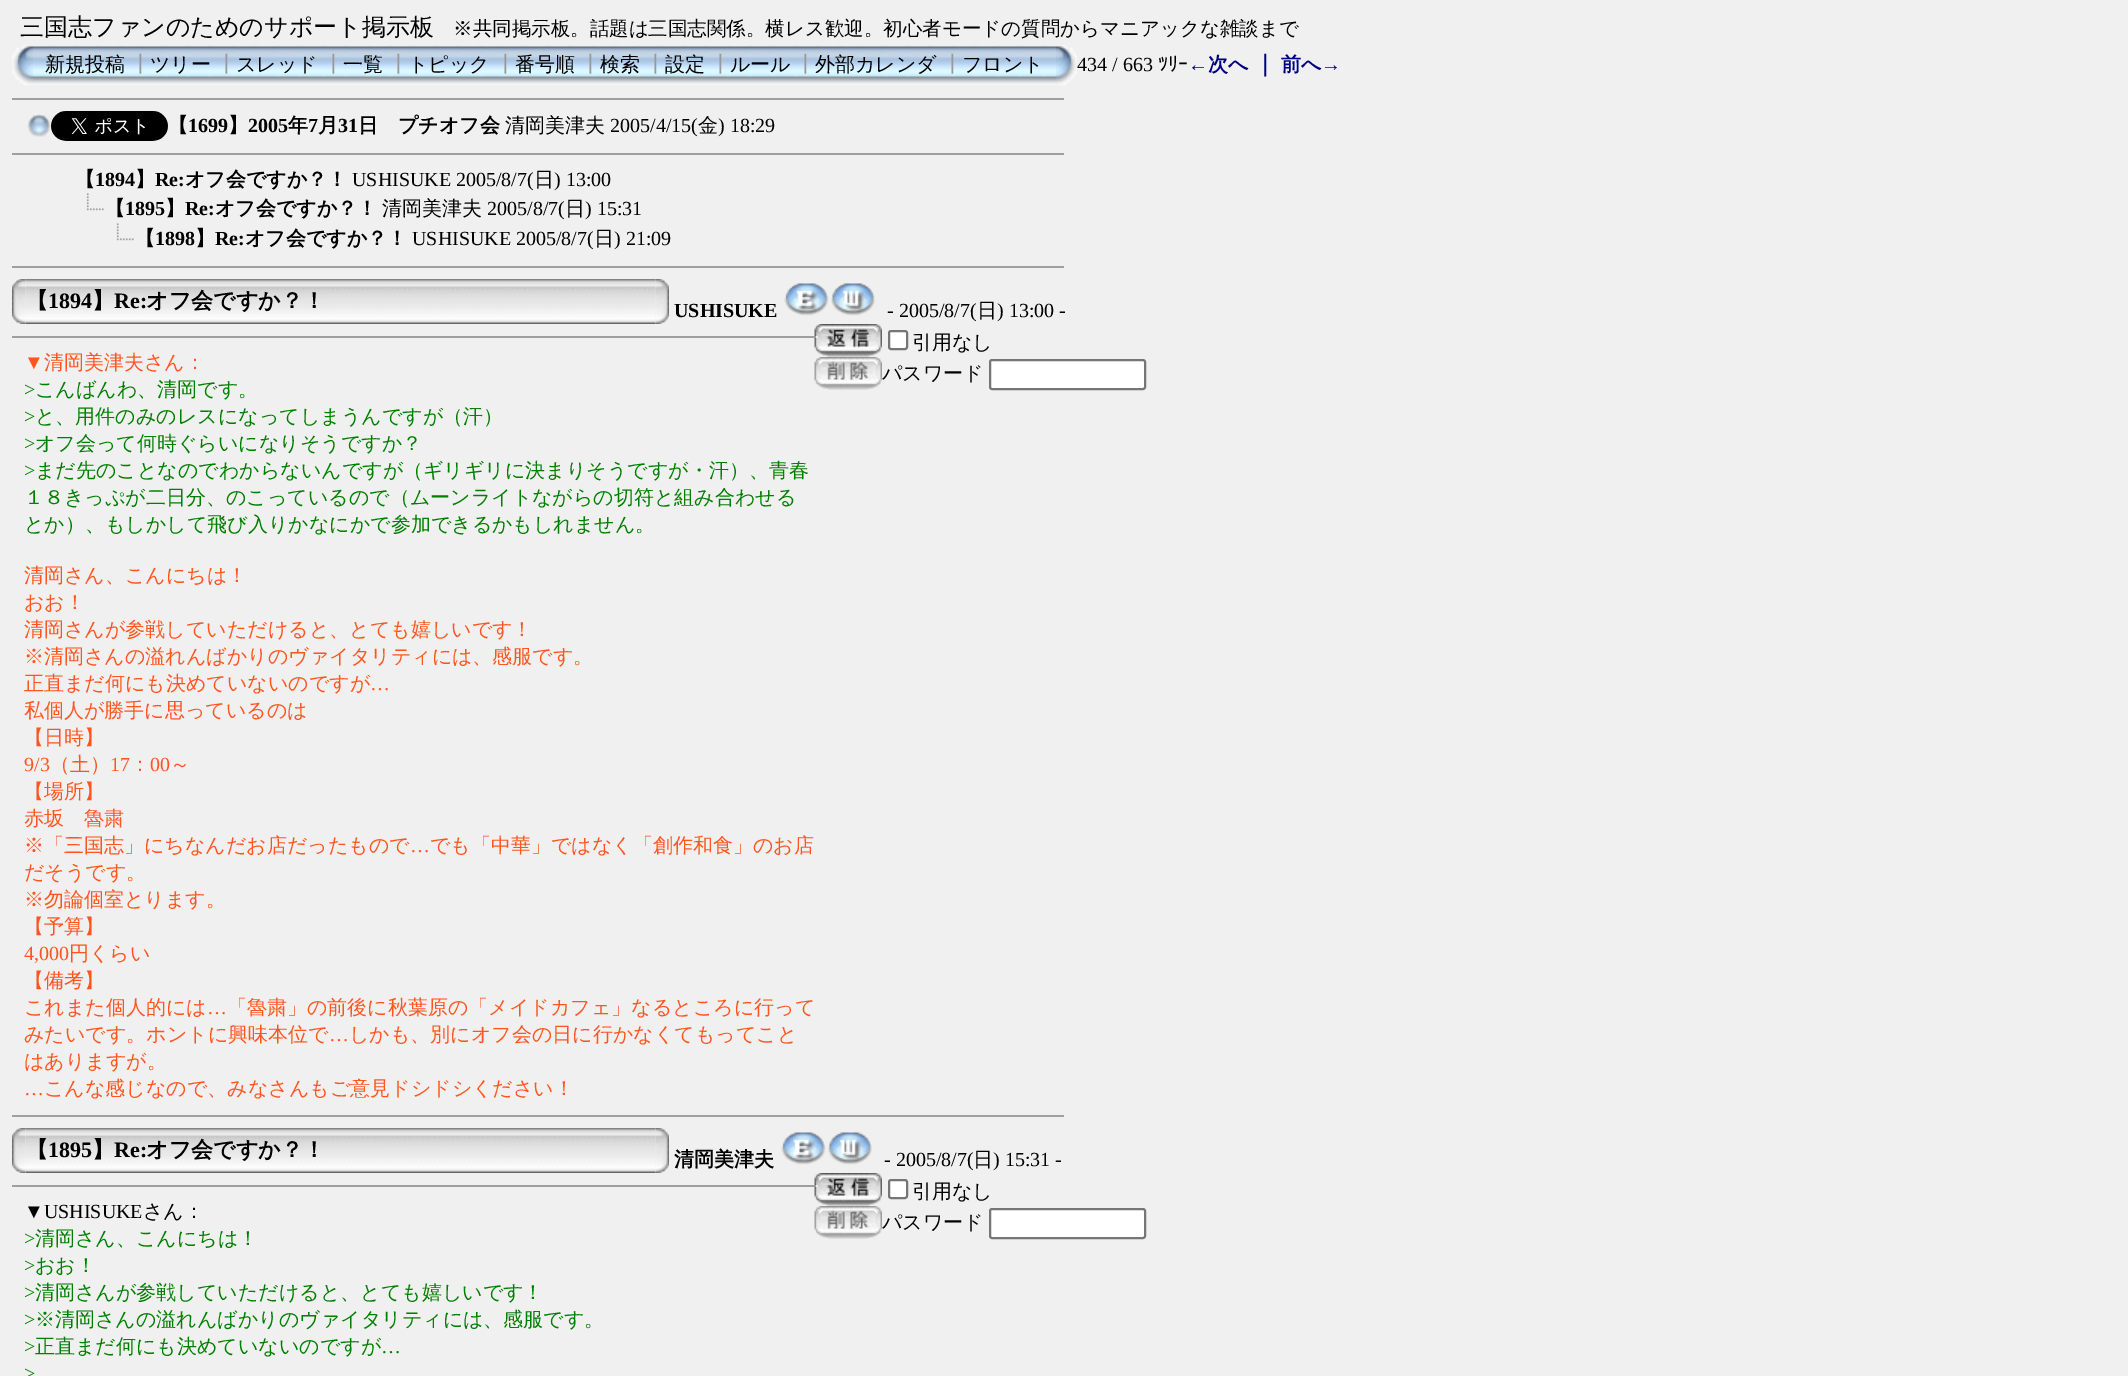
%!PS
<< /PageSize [2128 1376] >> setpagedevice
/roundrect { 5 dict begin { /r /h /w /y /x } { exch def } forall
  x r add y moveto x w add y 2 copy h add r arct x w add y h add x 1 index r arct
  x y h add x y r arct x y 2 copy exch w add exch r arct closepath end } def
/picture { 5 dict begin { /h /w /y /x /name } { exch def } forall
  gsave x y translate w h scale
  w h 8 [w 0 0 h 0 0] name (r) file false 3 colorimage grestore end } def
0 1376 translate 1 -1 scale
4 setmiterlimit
0.941 setgray
0 0 2128 1376 rectfill
/WenQuanYiZenHei-Medium [24 0 0 -24 0 0] selectfont
0 setgray
20 35 moveto (三国志ファンのためのサポート掲示板) show
/WenQuanYiZenHei-Medium [19.5 0 0 -19.5 0 0] selectfont
453 35 moveto (※共同掲示板。話題は三国志関係。横レス歓迎。初心者モードの質問からマニアックな雑談まで) show
(img1.rgb) 12 45 21 41 picture
(img2.rgb) 33 45 1023 40 picture
/WenQuanYiZenHei-Medium [20 0 0 -20 0 0] selectfont
45 71 moveto (新規投稿) show
0.6 setgray
130 71 moveto (┃) show
0 setgray
150 71 moveto (ツリー) show
0.6 setgray
216 71 moveto (┃) show
0 setgray
236 71 moveto (スレッド) show
0.6 setgray
323 71 moveto (┃) show
0 setgray
343 71 moveto (一覧) show
0.6 setgray
388 71 moveto (┃) show
0 setgray
408 71 moveto (トピック) show
0.6 setgray
495 71 moveto (┃) show
0 setgray
515 71 moveto (番号順) show
0.6 setgray
580 71 moveto (┃) show
0 setgray
600 71 moveto (検索) show
0.6 setgray
645 71 moveto (┃) show
0 setgray
665 71 moveto (設定) show
0.6 setgray
710 71 moveto (┃) show
0 setgray
730 71 moveto (ルール) show
0.6 setgray
795 71 moveto (┃) show
0 setgray
815 71 moveto (外部カレンダ) show
0.6 setgray
942 71 moveto (┃) show
0 setgray
962 71 moveto (フロント) show
(img3.rgb) 1056 45 21 41 picture
/LiberationSerif-Regular [20 0 0 -20 0 0] selectfont
1077 71 moveto (434 / 663) show
/IPAPGothic-Regular [20 0 0 -20 0 0] selectfont
1158 71 moveto (ﾂﾘｰ) show
/LiberationSerif-Bold [20 0 0 -20 0 0] selectfont
0 0 0.502 setrgbcolor
1188 71 moveto (←) show
/WenQuanYiZenHei-Bold [20 0 0 -20 0 0] selectfont
1208 71 moveto (次へ) show
/WenQuanYiZenHei-Bold [22 0 0 -22 0 0] selectfont
1254 71 moveto (｜) show
/WenQuanYiZenHei-Bold [20 0 0 -20 0 0] selectfont
1281 71 moveto (前へ) show
/LiberationSerif-Bold [20 0 0 -20 0 0] selectfont
1321 71 moveto (→) show
0.624 setgray
12 98 1053 2 rectfill
0.933 setgray
1064 98 2 2 rectfill
(img4.rgb) 27 114 24 23 picture
(img5.rgb) 51 111 117 30 picture
/WenQuanYiZenHei-Bold [20 0 0 -20 0 0] selectfont
0 setgray
168 132 moveto (【) show
/LiberationSerif-Bold [20 0 0 -20 0 0] selectfont
188 132 moveto (1699) show
/WenQuanYiZenHei-Bold [20 0 0 -20 0 0] selectfont
228 132 moveto (】) show
/LiberationSerif-Bold [20 0 0 -20 0 0] selectfont
248 132 moveto (2005) show
/WenQuanYiZenHei-Bold [20 0 0 -20 0 0] selectfont
288 132 moveto (年) show
/LiberationSerif-Bold [20 0 0 -20 0 0] selectfont
308 132 moveto (7) show
/WenQuanYiZenHei-Bold [20 0 0 -20 0 0] selectfont
318 132 moveto (月) show
/LiberationSerif-Bold [20 0 0 -20 0 0] selectfont
338 132 moveto (31) show
/WenQuanYiZenHei-Bold [20 0 0 -20 0 0] selectfont
358 132 moveto (日　プチオフ会) show
/WenQuanYiZenHei-Medium [20 0 0 -20 0 0] selectfont
505 132 moveto (清岡美津夫) show
/LiberationSerif-Regular [20 0 0 -20 0 0] selectfont
610 132 moveto (2005/4/15\() show
/WenQuanYiZenHei-Medium [20 0 0 -20 0 0] selectfont
698 132 moveto (金) show
/LiberationSerif-Regular [20 0 0 -20 0 0] selectfont
718 132 moveto (\) 18:29) show
0.624 setgray
12 153 1053 2 rectfill
0.933 setgray
1064 153 2 2 rectfill
/WenQuanYiZenHei-Bold [20 0 0 -20 0 0] selectfont
0 setgray
75 186 moveto (【) show
/LiberationSerif-Bold [20 0 0 -20 0 0] selectfont
95 186 moveto (1894) show
/WenQuanYiZenHei-Bold [20 0 0 -20 0 0] selectfont
135 186 moveto (】) show
/LiberationSerif-Bold [20 0 0 -20 0 0] selectfont
155 186 moveto (Re:) show
/WenQuanYiZenHei-Bold [20 0 0 -20 0 0] selectfont
185 186 moveto (オフ会ですか？！) show
/LiberationSerif-Regular [20 0 0 -20 0 0] selectfont
352 186 moveto (USHISUKE 2005/8/7\() show
/WenQuanYiZenHei-Medium [20 0 0 -20 0 0] selectfont
534 186 moveto (日) show
/LiberationSerif-Regular [20 0 0 -20 0 0] selectfont
554 186 moveto (\) 13:00) show
(img6.rgb) 86 193 18 18 picture
/WenQuanYiZenHei-Bold [20 0 0 -20 0 0] selectfont
105 215 moveto (【) show
/LiberationSerif-Bold [20 0 0 -20 0 0] selectfont
125 215 moveto (1895) show
/WenQuanYiZenHei-Bold [20 0 0 -20 0 0] selectfont
165 215 moveto (】) show
/LiberationSerif-Bold [20 0 0 -20 0 0] selectfont
185 215 moveto (Re:) show
/WenQuanYiZenHei-Bold [20 0 0 -20 0 0] selectfont
215 215 moveto (オフ会ですか？！) show
/WenQuanYiZenHei-Medium [20 0 0 -20 0 0] selectfont
382 215 moveto (清岡美津夫) show
/LiberationSerif-Regular [20 0 0 -20 0 0] selectfont
487 215 moveto (2005/8/7\() show
/WenQuanYiZenHei-Medium [20 0 0 -20 0 0] selectfont
565 215 moveto (日) show
/LiberationSerif-Regular [20 0 0 -20 0 0] selectfont
585 215 moveto (\) 15:31) show
(img6.rgb) 116 223 18 18 picture
/WenQuanYiZenHei-Bold [20 0 0 -20 0 0] selectfont
135 245 moveto (【) show
/LiberationSerif-Bold [20 0 0 -20 0 0] selectfont
155 245 moveto (1898) show
/WenQuanYiZenHei-Bold [20 0 0 -20 0 0] selectfont
195 245 moveto (】) show
/LiberationSerif-Bold [20 0 0 -20 0 0] selectfont
215 245 moveto (Re:) show
/WenQuanYiZenHei-Bold [20 0 0 -20 0 0] selectfont
245 245 moveto (オフ会ですか？！) show
/LiberationSerif-Regular [20 0 0 -20 0 0] selectfont
412 245 moveto (USHISUKE 2005/8/7\() show
/WenQuanYiZenHei-Medium [20 0 0 -20 0 0] selectfont
594 245 moveto (日) show
/LiberationSerif-Regular [20 0 0 -20 0 0] selectfont
614 245 moveto (\) 21:09) show
0.624 setgray
12 266 1053 2 rectfill
0.933 setgray
1064 266 2 2 rectfill
(img8.rgb) 25 279 631 45 picture
(img7.rgb) 12 279 14 45 picture
/WenQuanYiZenHei-Bold [22 0 0 -22 0 0] selectfont
0 setgray
26 308 moveto (【) show
/LiberationSerif-Bold [22 0 0 -22 0 0] selectfont
48 308 moveto (1894) show
/WenQuanYiZenHei-Bold [22 0 0 -22 0 0] selectfont
92 308 moveto (】) show
/LiberationSerif-Bold [22 0 0 -22 0 0] selectfont
114 308 moveto (Re:) show
/WenQuanYiZenHei-Bold [22 0 0 -22 0 0] selectfont
146 308 moveto (オフ会ですか？！) show
(img9.rgb) 655 279 14 45 picture
/LiberationSerif-Bold [20 0 0 -20 0 0] selectfont
674 317 moveto (USHISUKE) show
(img10.rgb) 784 283 45 33 picture
(img11.rgb) 831 283 44 33 picture
/LiberationSerif-Regular [20 0 0 -20 0 0] selectfont
887 317 moveto (- 2005/8/7\() show
/WenQuanYiZenHei-Medium [20 0 0 -20 0 0] selectfont
977 317 moveto (日) show
/LiberationSerif-Regular [20 0 0 -20 0 0] selectfont
997 317 moveto (\) 13:00 -) show
1 0.329 0.114 setrgbcolor
24 369 moveto (▼) show
/WenQuanYiZenHei-Medium [20 0 0 -20 0 0] selectfont
44 369 moveto (清岡美津夫さん：) show
/LiberationSerif-Regular [20 0 0 -20 0 0] selectfont
0 0.502 0 setrgbcolor
24 396 moveto (>) show
/WenQuanYiZenHei-Medium [20 0 0 -20 0 0] selectfont
35 396 moveto (こんばんわ、清岡です。) show
/LiberationSerif-Regular [20 0 0 -20 0 0] selectfont
24 423 moveto (>) show
/WenQuanYiZenHei-Medium [20 0 0 -20 0 0] selectfont
35 423 moveto (と、用件のみのレスになってしまうんですが（汗）) show
/LiberationSerif-Regular [20 0 0 -20 0 0] selectfont
24 450 moveto (>) show
/WenQuanYiZenHei-Medium [20 0 0 -20 0 0] selectfont
35 450 moveto (オフ会って何時ぐらいになりそうですか？) show
/LiberationSerif-Regular [20 0 0 -20 0 0] selectfont
24 477 moveto (>) show
/WenQuanYiZenHei-Medium [20 0 0 -20 0 0] selectfont
35 477 moveto (まだ先のことなのでわからないんですが（ギリギリに決まりそうですが・汗）、青春) show
24 504 moveto (１８きっぷが二日分、のこっているので（ムーンライトながらの切符と組み合わせる) show
24 531 moveto (とか）、もしかして飛び入りかなにかで参加できるかもしれません。) show
1 0.329 0.114 setrgbcolor
24 582 moveto (清岡さん、こんにちは！) show
24 609 moveto (おお！) show
24 636 moveto (清岡さんが参戦していただけると、とても嬉しいです！) show
24 663 moveto (※清岡さんの溢れんばかりのヴァイタリティには、感服です。) show
24 690 moveto (正直まだ何にも決めていないのですが) show
/LiberationSerif-Regular [20 0 0 -20 0 0] selectfont
370 690 moveto (…) show
/WenQuanYiZenHei-Medium [20 0 0 -20 0 0] selectfont
24 717 moveto (私個人が勝手に思っているのは) show
24 744 moveto (【日時】) show
/LiberationSerif-Regular [20 0 0 -20 0 0] selectfont
24 771 moveto (9/3) show
/WenQuanYiZenHei-Medium [20 0 0 -20 0 0] selectfont
50 771 moveto (（土）) show
/LiberationSerif-Regular [20 0 0 -20 0 0] selectfont
110 771 moveto (17) show
/WenQuanYiZenHei-Medium [20 0 0 -20 0 0] selectfont
130 771 moveto (：) show
/LiberationSerif-Regular [20 0 0 -20 0 0] selectfont
150 771 moveto (00) show
/WenQuanYiZenHei-Medium [20 0 0 -20 0 0] selectfont
170 771 moveto (～) show
24 798 moveto (【場所】) show
24 825 moveto (赤坂　魯粛) show
24 852 moveto (※「三国志」にちなんだお店だったもので) show
/LiberationSerif-Regular [20 0 0 -20 0 0] selectfont
410 852 moveto (…) show
/WenQuanYiZenHei-Medium [20 0 0 -20 0 0] selectfont
430 852 moveto (でも「中華」ではなく「創作和食」のお店) show
24 879 moveto (だそうです。) show
24 906 moveto (※勿論個室とります。) show
24 933 moveto (【予算】) show
/LiberationSerif-Regular [20 0 0 -20 0 0] selectfont
24 960 moveto (4,000) show
/WenQuanYiZenHei-Medium [20 0 0 -20 0 0] selectfont
69 960 moveto (円くらい) show
24 987 moveto (【備考】) show
24 1014 moveto (これまた個人的には) show
/LiberationSerif-Regular [20 0 0 -20 0 0] selectfont
207 1014 moveto (…) show
/WenQuanYiZenHei-Medium [20 0 0 -20 0 0] selectfont
227 1014 moveto (「魯粛」の前後に秋葉原の「メイドカフェ」なるところに行って) show
24 1041 moveto (みたいです。ホントに興味本位で) show
/LiberationSerif-Regular [20 0 0 -20 0 0] selectfont
329 1041 moveto (…) show
/WenQuanYiZenHei-Medium [20 0 0 -20 0 0] selectfont
349 1041 moveto (しかも、別にオフ会の日に行かなくてもってこと) show
24 1068 moveto (はありますが。) show
/LiberationSerif-Regular [20 0 0 -20 0 0] selectfont
24 1095 moveto (…) show
/WenQuanYiZenHei-Medium [20 0 0 -20 0 0] selectfont
44 1095 moveto (こんな感じなので、みなさんもご意見ドシドシください！) show
(img12.rgb) 814 324 68 33 picture
0.624 setgray
12 336 806 2 rectfill
0.933 setgray
816 336 2 2 rectfill
1 setgray
889 331 18 18 2 roundrect gsave fill grestore
0.463 setgray
2 setlinewidth
stroke
0 setgray
912 349 moveto (引用なし) show
(img13.rgb) 814 357 68 33 picture
882 380 moveto (パスワード) show
1 setgray
990 360 155 29 2 roundrect gsave fill grestore
0.463 setgray
stroke
0.624 setgray
12 1115 1053 2 rectfill
0.933 setgray
1064 1115 2 2 rectfill
(img14.rgb) 25 1128 631 45 picture
(img7.rgb) 12 1128 14 45 picture
/WenQuanYiZenHei-Bold [22 0 0 -22 0 0] selectfont
0 setgray
26 1157 moveto (【) show
/LiberationSerif-Bold [22 0 0 -22 0 0] selectfont
48 1157 moveto (1895) show
/WenQuanYiZenHei-Bold [22 0 0 -22 0 0] selectfont
92 1157 moveto (】) show
/LiberationSerif-Bold [22 0 0 -22 0 0] selectfont
114 1157 moveto (Re:) show
/WenQuanYiZenHei-Bold [22 0 0 -22 0 0] selectfont
146 1157 moveto (オフ会ですか？！) show
(img9.rgb) 655 1128 14 45 picture
/WenQuanYiZenHei-Bold [20 0 0 -20 0 0] selectfont
674 1166 moveto (清岡美津夫) show
(img10.rgb) 781 1132 45 33 picture
(img11.rgb) 828 1132 44 33 picture
/LiberationSerif-Regular [20 0 0 -20 0 0] selectfont
884 1166 moveto (- 2005/8/7\() show
/WenQuanYiZenHei-Medium [20 0 0 -20 0 0] selectfont
973 1166 moveto (日) show
/LiberationSerif-Regular [20 0 0 -20 0 0] selectfont
993 1166 moveto (\) 15:31 -) show
24 1218 moveto (▼USHISUKE) show
/WenQuanYiZenHei-Medium [20 0 0 -20 0 0] selectfont
143 1218 moveto (さん：) show
/LiberationSerif-Regular [20 0 0 -20 0 0] selectfont
0 0.502 0 setrgbcolor
24 1245 moveto (>) show
/WenQuanYiZenHei-Medium [20 0 0 -20 0 0] selectfont
35 1245 moveto (清岡さん、こんにちは！) show
/LiberationSerif-Regular [20 0 0 -20 0 0] selectfont
24 1272 moveto (>) show
/WenQuanYiZenHei-Medium [20 0 0 -20 0 0] selectfont
35 1272 moveto (おお！) show
/LiberationSerif-Regular [20 0 0 -20 0 0] selectfont
24 1299 moveto (>) show
/WenQuanYiZenHei-Medium [20 0 0 -20 0 0] selectfont
35 1299 moveto (清岡さんが参戦していただけると、とても嬉しいです！) show
/LiberationSerif-Regular [20 0 0 -20 0 0] selectfont
24 1326 moveto (>) show
/WenQuanYiZenHei-Medium [20 0 0 -20 0 0] selectfont
35 1326 moveto (※清岡さんの溢れんばかりのヴァイタリティには、感服です。) show
/LiberationSerif-Regular [20 0 0 -20 0 0] selectfont
24 1353 moveto (>) show
/WenQuanYiZenHei-Medium [20 0 0 -20 0 0] selectfont
35 1353 moveto (正直まだ何にも決めていないのですが) show
/LiberationSerif-Regular [20 0 0 -20 0 0] selectfont
381 1353 moveto (…) show
24 1380 moveto (>) show
(img12.rgb) 814 1173 68 33 picture
0.624 setgray
12 1185 806 2 rectfill
0.933 setgray
816 1185 2 2 rectfill
1 setgray
889 1180 18 18 2 roundrect gsave fill grestore
0.463 setgray
stroke
/WenQuanYiZenHei-Medium [20 0 0 -20 0 0] selectfont
0 setgray
912 1198 moveto (引用なし) show
(img13.rgb) 814 1206 68 33 picture
882 1229 moveto (パスワード) show
1 setgray
990 1209 155 29 2 roundrect gsave fill grestore
0.463 setgray
stroke
showpage
